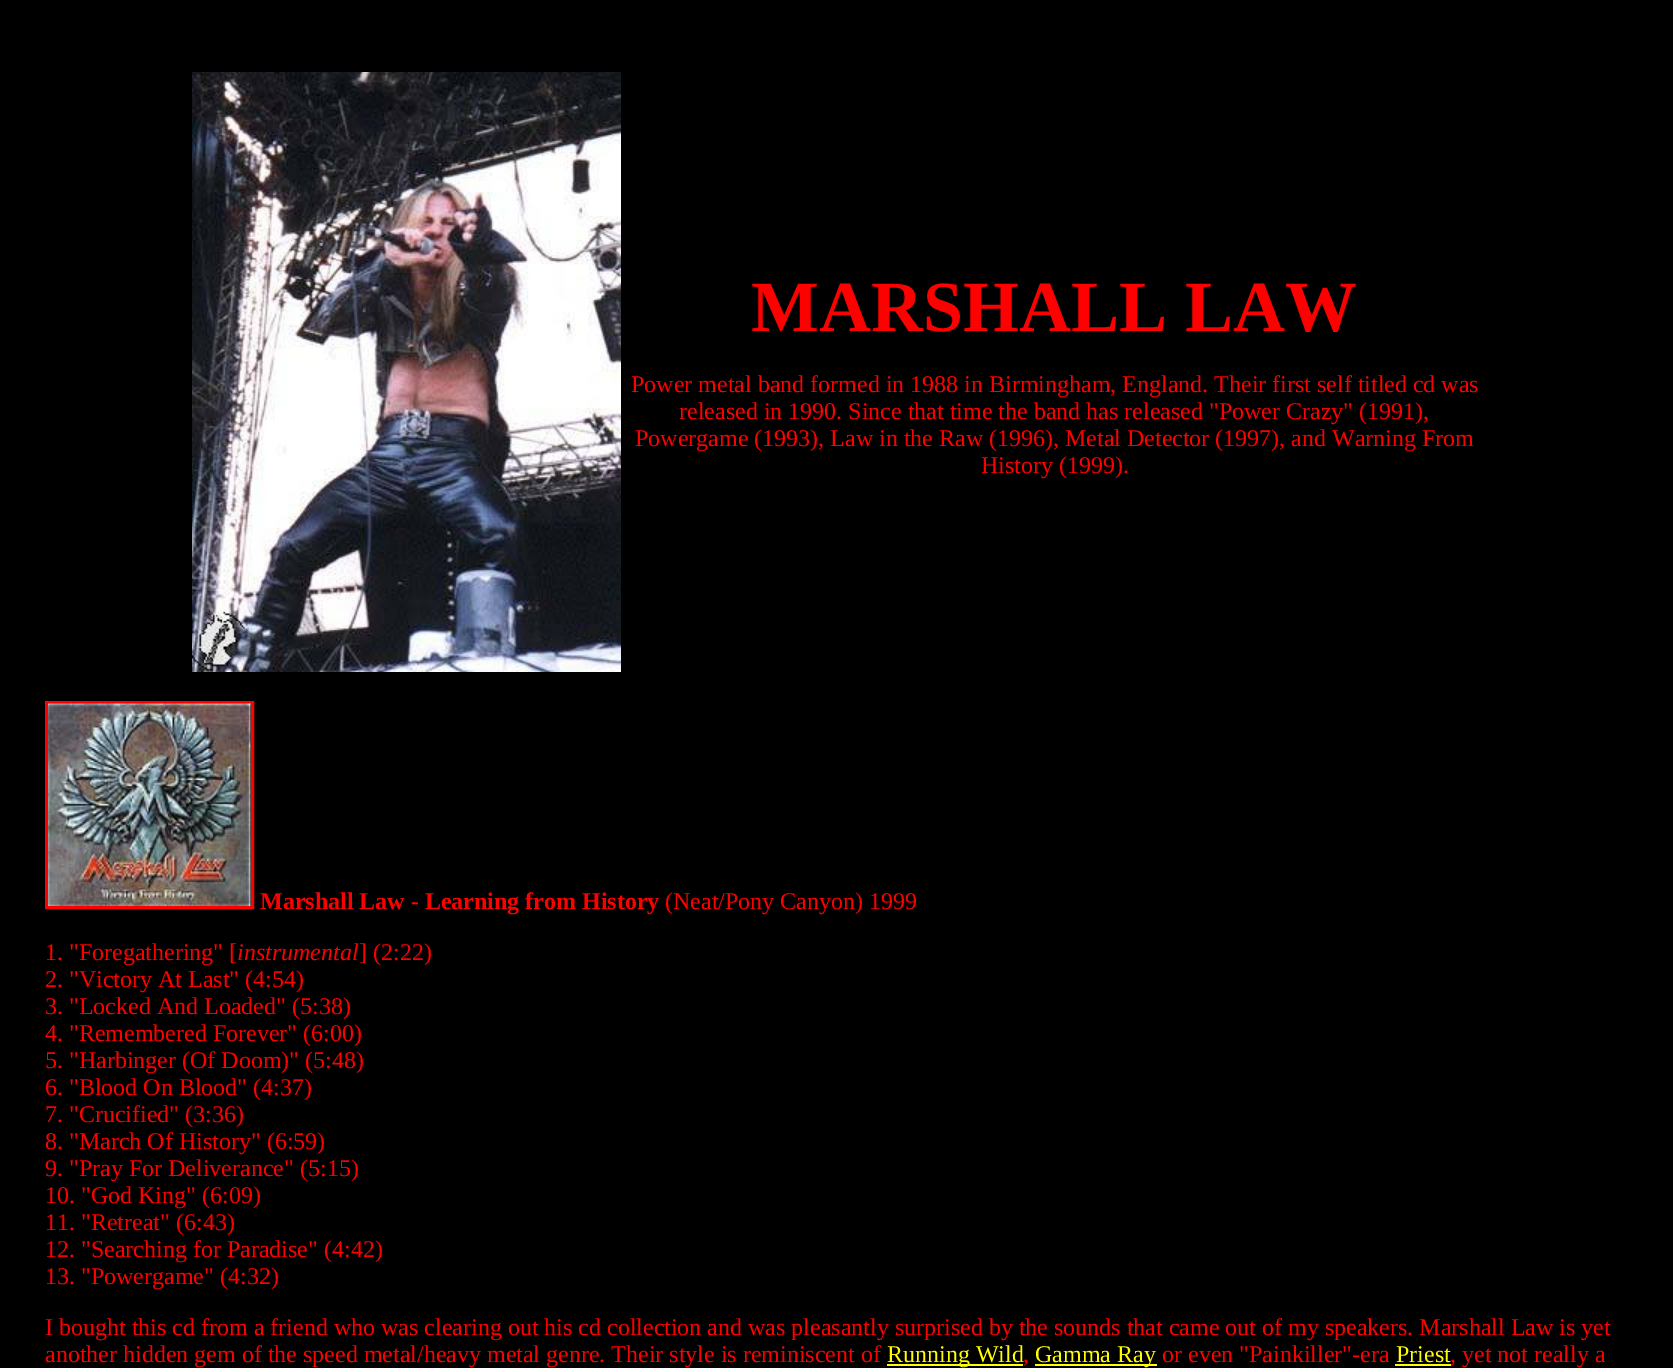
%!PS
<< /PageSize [1673 1368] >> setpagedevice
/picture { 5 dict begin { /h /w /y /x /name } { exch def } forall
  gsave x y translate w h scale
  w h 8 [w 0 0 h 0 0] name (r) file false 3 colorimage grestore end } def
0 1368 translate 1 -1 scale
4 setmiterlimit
0 setgray
0 0 1673 1368 rectfill
(img1.rgb) 192 72 429 600 picture
/LiberationSerif-Bold [72 0 0 -72 0 0] selectfont
1 0 0 setrgbcolor
751 331 moveto (MARSHALL LAW) show
/LiberationSerif-Regular [24 0 0 -24 0 0] selectfont
631 392 moveto (Power metal band formed in 1988 in Birmingham, England. Their first self titled cd was) show
679 419 moveto (released in 1990. Since that time the band has released "Power Crazy" \(1991\),) show
635 446 moveto (Powergame \(1993\), Law in the Raw \(1996\), Metal Detector \(1997\), and Warning From) show
981 473 moveto (History \(1999\).) show
3 setlinewidth
46.5 702.5 206 205 rectstroke
(img2.rgb) 48 703 203 203 picture
/LiberationSerif-Bold [24 0 0 -24 0 0] selectfont
260 909 moveto (Marshall Law - Learning from History) show
/LiberationSerif-Regular [24 0 0 -24 0 0] selectfont
665 909 moveto (\(Neat/Pony Canyon\) 1999) show
45 960 moveto (1. "Foregathering" [) show
/LiberationSerif-Italic [24 0 0 -24 0 0] selectfont
237 960 moveto (instrumental) show
/LiberationSerif-Regular [24 0 0 -24 0 0] selectfont
359 960 moveto (] \(2:22\)) show
45 987 moveto (2. "Victory At Last" \(4:54\)) show
45 1014 moveto (3. "Locked And Loaded" \(5:38\)) show
45 1041 moveto (4. "Remembered Forever" \(6:00\)) show
45 1068 moveto (5. "Harbinger \(Of Doom\)" \(5:48\)) show
45 1095 moveto (6. "Blood On Blood" \(4:37\)) show
45 1122 moveto (7. "Crucified" \(3:36\)) show
45 1149 moveto (8. "March Of History" \(6:59\)) show
45 1176 moveto (9. "Pray For Deliverance" \(5:15\)) show
45 1203 moveto (10. "God King" \(6:09\)) show
45 1230 moveto (11. "Retreat" \(6:43\)) show
45 1257 moveto (12. "Searching for Paradise" \(4:42\)) show
45 1284 moveto (13. "Powergame" \(4:32\)) show
45 1335 moveto (I bought this cd from a friend who was clearing out his cd collection and was pleasantly surprised by the sounds that came out of my speakers. Marshall Law is yet) show
45 1362 moveto (another hidden gem of the speed metal/heavy metal genre. Their style is reminiscent of) show
1 1 0 setrgbcolor
887 1364 136 2 rectfill
887 1362 moveto (Running Wild) show
1 0 0 setrgbcolor
1023 1362 moveto (,) show
1 1 0 setrgbcolor
1035 1364 122 2 rectfill
1035 1362 moveto (Gamma Ray) show
1 0 0 setrgbcolor
1162 1362 moveto (or even "Painkiller"-era) show
1 1 0 setrgbcolor
1396 1362 moveto (Priest) show
1 0 0 setrgbcolor
1450 1362 moveto (, yet not really a) show
1 1 0 setrgbcolor
1395 1364 56 2 rectfill
showpage
